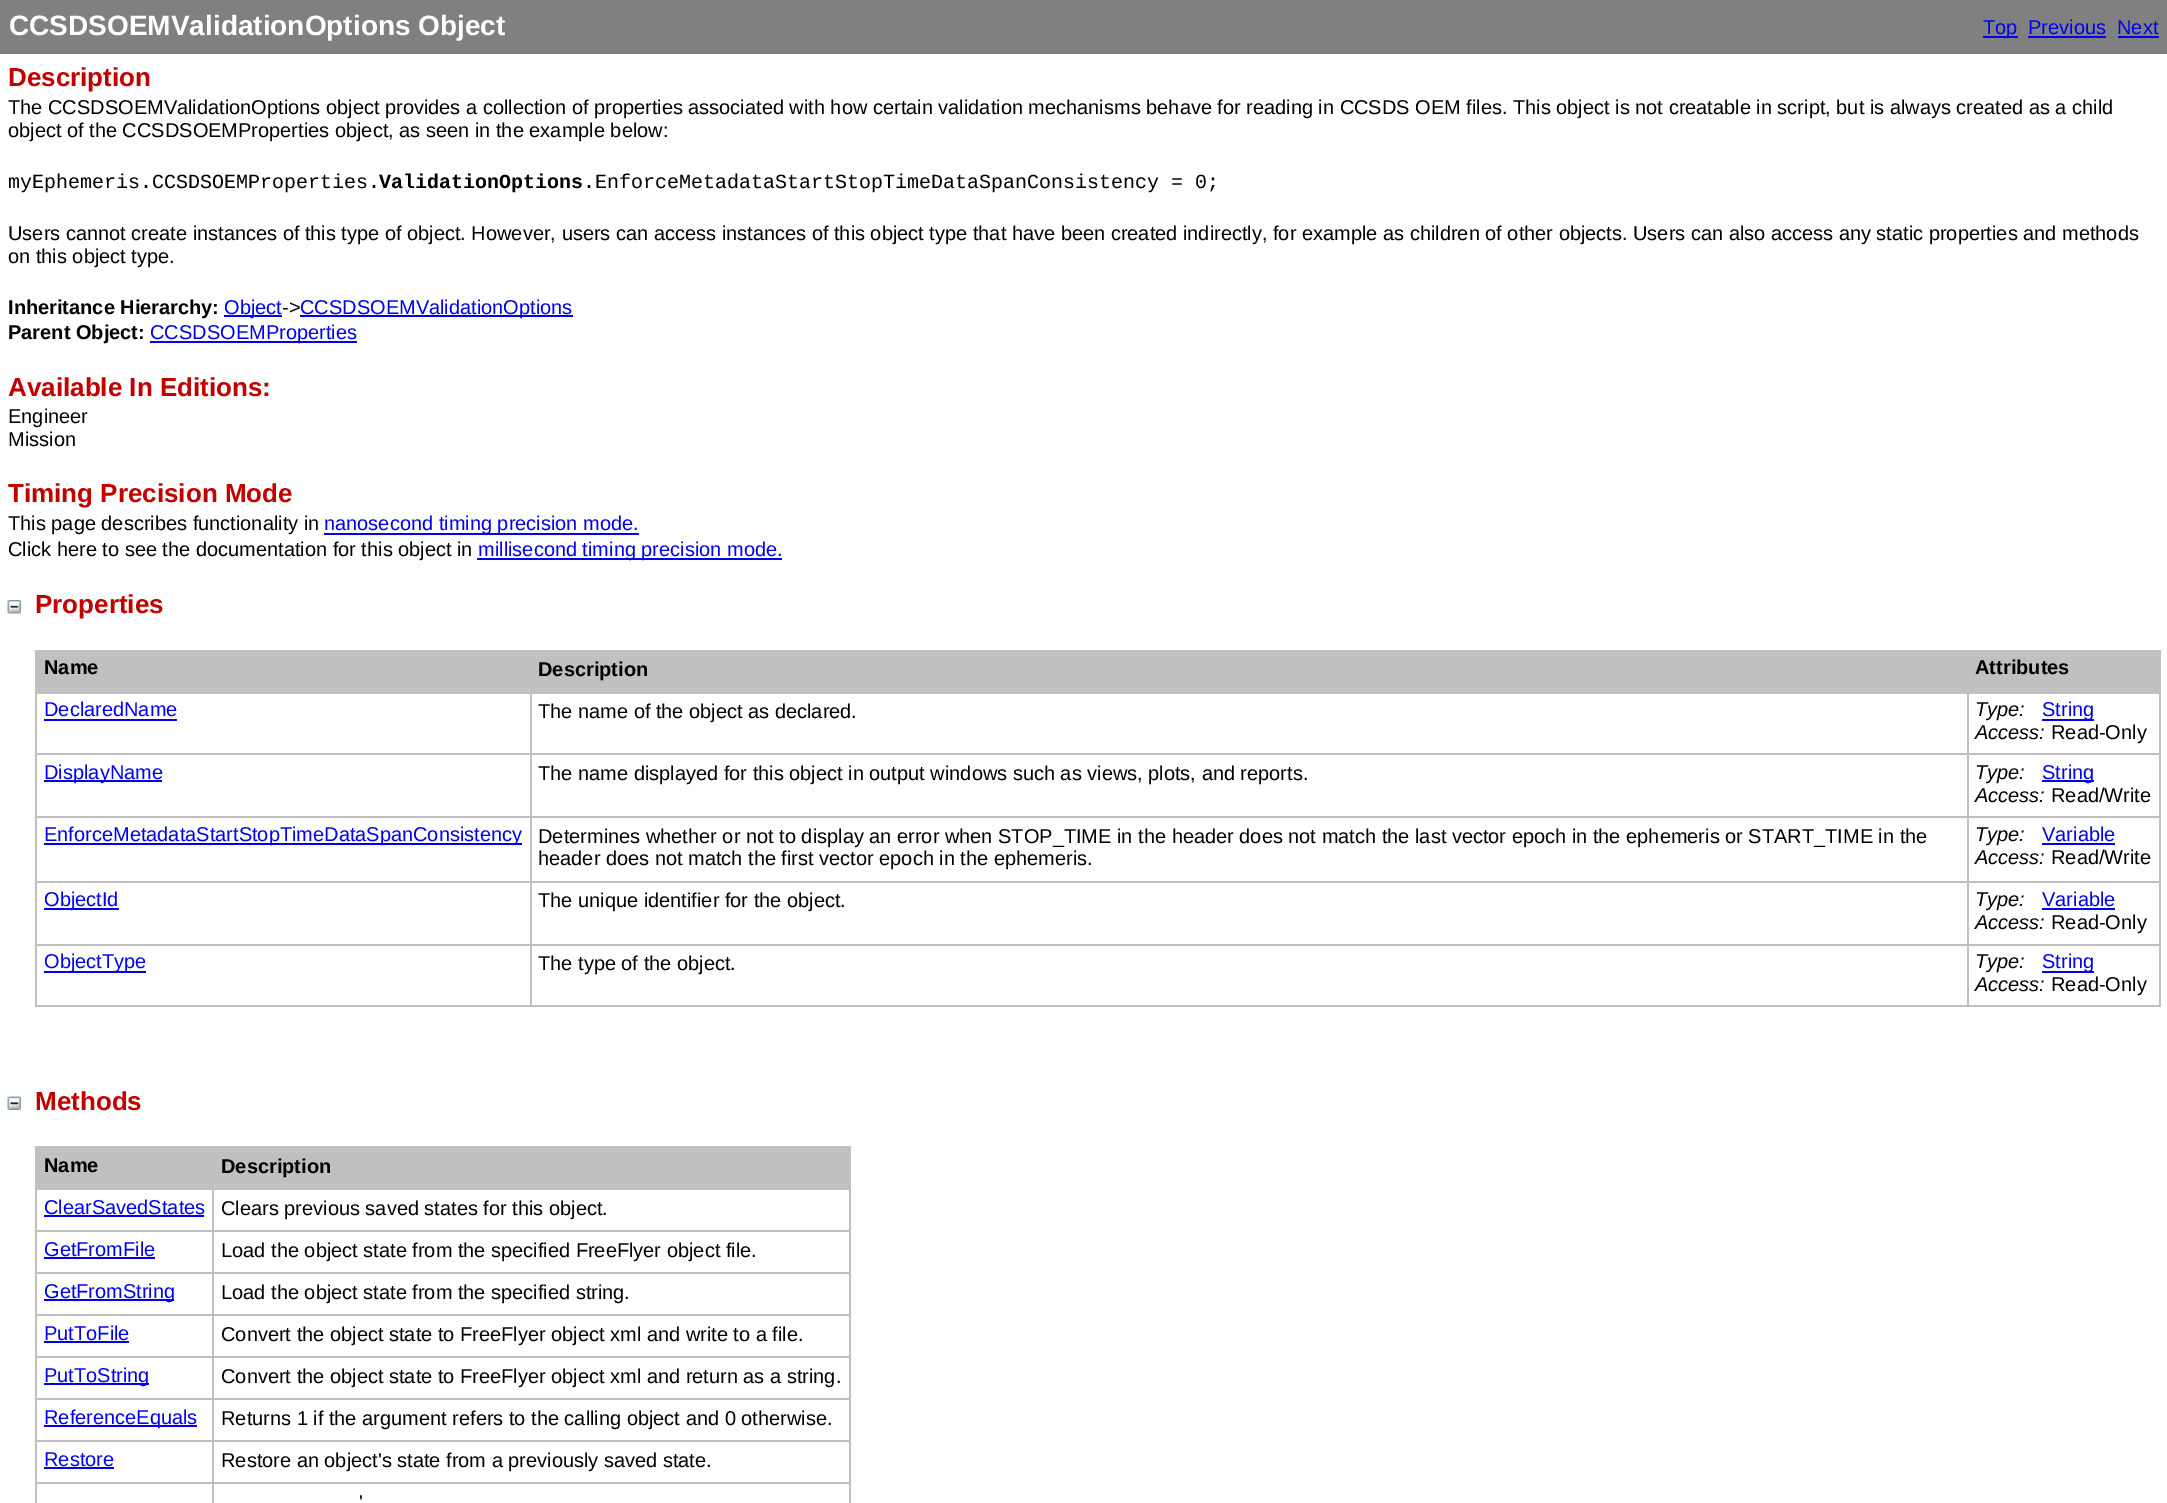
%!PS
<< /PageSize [2167 1503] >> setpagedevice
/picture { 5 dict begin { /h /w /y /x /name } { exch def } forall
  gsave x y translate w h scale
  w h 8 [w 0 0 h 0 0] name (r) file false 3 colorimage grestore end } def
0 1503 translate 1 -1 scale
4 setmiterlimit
1 setgray
0 0 2167 1503 rectfill
0.502 setgray
0 0 2167 54 rectfill
/LiberationSans-Bold [28 0 0 -28 0 0] selectfont
1 setgray
9 35 moveto (CCSDSOEMValidationOptions Object) show
0 0 0.933 setrgbcolor
1983 36 35 2 rectfill
/LiberationSans-Regular [20 0 0 -20 0 0] selectfont
1983 34 moveto (Top) show
2028 34 moveto (Previous) show
2028 36 78 2 rectfill
2117 34 moveto (Next) show
2118 36 41 2 rectfill
/LiberationSans-Bold [26 0 0 -26 0 0] selectfont
0.757 0 0 setrgbcolor
8 86 moveto (Description) show
/LiberationSans-Regular [20 0 0 -20 0 0] selectfont
0 setgray
8 114 moveto (The CCSDSOEMValidationOptions object provides a collection of properties associated with how certain validation mechanisms behave for reading in CCSDS OEM files. This object is not creatable in script, but is always created as a child) show
8 137 moveto (object of the CCSDSOEMProperties object, as seen in the example below:) show
/LiberationMono-Regular [20 0 0 -20 0 0] selectfont
8 188 moveto (myEphemeris.CCSDSOEMProperties.) show
/LiberationMono-Bold [20 0 0 -20 0 0] selectfont
379 188 moveto (ValidationOptions) show
/LiberationMono-Regular [20 0 0 -20 0 0] selectfont
583 188 moveto (.EnforceMetadataStartStopTimeDataSpanConsistency = 0;) show
/LiberationSans-Regular [20 0 0 -20 0 0] selectfont
8 240 moveto (Users cannot create instances of this type of object. However, users can access instances of this object type that have been created indirectly, for example as children of other objects. Users can also access any static properties and methods) show
8 263 moveto (on this object type.) show
/LiberationSans-Bold [20 0 0 -20 0 0] selectfont
8 314 moveto (Inheritance Hierarchy:) show
0 0 0.933 setrgbcolor
224 315 58 2 rectfill
/LiberationSans-Regular [20 0 0 -20 0 0] selectfont
224 314 moveto (Object) show
0 setgray
282 314 moveto (->) show
0 0 0.933 setrgbcolor
300 315 273 2 rectfill
300 314 moveto (CCSDSOEMValidationOptions) show
/LiberationSans-Bold [20 0 0 -20 0 0] selectfont
0 setgray
8 339 moveto (Parent Object:) show
0 0 0.933 setrgbcolor
150 341 207 2 rectfill
/LiberationSans-Regular [20 0 0 -20 0 0] selectfont
150 339 moveto (CCSDSOEMProperties) show
/LiberationSans-Bold [26 0 0 -26 0 0] selectfont
0.757 0 0 setrgbcolor
8 396 moveto (Available In Editions:) show
/LiberationSans-Regular [20 0 0 -20 0 0] selectfont
0 setgray
8 423 moveto (Engineer) show
8 446 moveto (Mission) show
/LiberationSans-Bold [26 0 0 -26 0 0] selectfont
0.757 0 0 setrgbcolor
8 502 moveto (Timing Precision Mode) show
/LiberationSans-Regular [20 0 0 -20 0 0] selectfont
0 setgray
8 530 moveto (This page describes functionality in) show
0 0 0.933 setrgbcolor
324 533 315 2 rectfill
324 530 moveto (nanosecond timing precision mode.) show
0 setgray
8 556 moveto (Click here to see the documentation for this object in) show
0 0 0.933 setrgbcolor
477 558 305 2 rectfill
478 556 moveto (millisecond timing precision mode.) show
(img1.rgb) 7 600 14 14 picture
/LiberationSans-Bold [26 0 0 -26 0 0] selectfont
0.757 0 0 setrgbcolor
35 613 moveto (Properties) show
0.753 setgray
37 652 493 40 rectfill
530 650 1629 42 rectfill
35 650 496 2 rectfill
1967 692 193 2 rectfill
1967 753 193 2 rectfill
1967 816 193 2 rectfill
1967 881 193 2 rectfill
1967 944 193 2 rectfill
2159 944 2 63 rectfill
1967 1005 193 2 rectfill
1967 944 2 63 rectfill
530 944 1438 2 rectfill
1967 881 2 64 rectfill
530 881 1438 2 rectfill
1967 816 2 66 rectfill
530 816 1438 2 rectfill
1967 753 2 65 rectfill
530 753 1438 2 rectfill
1967 692 2 63 rectfill
530 692 1438 2 rectfill
530 1005 1438 2 rectfill
530 944 2 63 rectfill
35 944 496 2 rectfill
530 881 2 64 rectfill
35 881 496 2 rectfill
530 816 2 66 rectfill
35 816 496 2 rectfill
530 753 2 65 rectfill
35 753 496 2 rectfill
530 692 2 63 rectfill
35 692 496 2 rectfill
35 1005 496 2 rectfill
35 944 2 63 rectfill
35 881 2 64 rectfill
35 816 2 66 rectfill
35 753 2 65 rectfill
35 692 2 63 rectfill
35 650 2 43 rectfill
/LiberationSans-Bold [20 0 0 -20 0 0] selectfont
0 setgray
44 674 moveto (Name) show
538 676 moveto (Description) show
1975 674 moveto (Attributes) show
/LiberationSans-Regular [20 0 0 -20 0 0] selectfont
0 0 0.933 setrgbcolor
44 716 moveto (DeclaredName) show
44 719 133 2 rectfill
0 setgray
538 718 moveto (The name of the object as declared.) show
0.753 setgray
2159 881 2 64 rectfill
2159 816 2 66 rectfill
2159 753 2 65 rectfill
2159 650 2 105 rectfill
/LiberationSans-Italic [20 0 0 -20 0 0] selectfont
0 setgray
1975 716 moveto (Type:) show
0 0 0.933 setrgbcolor
2042 719 52 2 rectfill
/LiberationSans-Regular [20 0 0 -20 0 0] selectfont
2042 716 moveto (String) show
/LiberationSans-Italic [20 0 0 -20 0 0] selectfont
0 setgray
1975 739 moveto (Access:) show
/LiberationSans-Regular [20 0 0 -20 0 0] selectfont
2051 739 moveto (Read-Only) show
0 0 0.933 setrgbcolor
44 780 118 2 rectfill
44 779 moveto (DisplayName) show
0 setgray
538 780 moveto (The name displayed for this object in output windows such as views, plots, and reports.) show
/LiberationSans-Italic [20 0 0 -20 0 0] selectfont
1975 779 moveto (Type:) show
0 0 0.933 setrgbcolor
2042 780 52 2 rectfill
/LiberationSans-Regular [20 0 0 -20 0 0] selectfont
2042 779 moveto (String) show
/LiberationSans-Italic [20 0 0 -20 0 0] selectfont
0 setgray
1975 802 moveto (Access:) show
/LiberationSans-Regular [20 0 0 -20 0 0] selectfont
2051 802 moveto (Read/Write) show
0 0 0.933 setrgbcolor
44 843 478 2 rectfill
44 841 moveto (EnforceMetadataStartStopTimeDataSpanConsistency) show
0 setgray
538 843 moveto (Determines whether or not to display an error when STOP_TIME in the header does not match the last vector epoch in the ephemeris or START_TIME in the) show
538 865 moveto (header does not match the first vector epoch in the ephemeris.) show
/LiberationSans-Italic [20 0 0 -20 0 0] selectfont
1975 841 moveto (Type:) show
/LiberationSans-Regular [20 0 0 -20 0 0] selectfont
0 0 0.933 setrgbcolor
2042 841 moveto (Variable) show
2042 843 73 2 rectfill
/LiberationSans-Italic [20 0 0 -20 0 0] selectfont
0 setgray
1975 864 moveto (Access:) show
/LiberationSans-Regular [20 0 0 -20 0 0] selectfont
2051 864 moveto (Read/Write) show
0 0 0.933 setrgbcolor
44 908 75 2 rectfill
44 906 moveto (ObjectId) show
0 setgray
538 907 moveto (The unique identifier for the object.) show
/LiberationSans-Italic [20 0 0 -20 0 0] selectfont
1975 906 moveto (Type:) show
/LiberationSans-Regular [20 0 0 -20 0 0] selectfont
0 0 0.933 setrgbcolor
2042 906 moveto (Variable) show
2042 908 73 2 rectfill
/LiberationSans-Italic [20 0 0 -20 0 0] selectfont
0 setgray
1975 929 moveto (Access:) show
/LiberationSans-Regular [20 0 0 -20 0 0] selectfont
2051 929 moveto (Read-Only) show
0 0 0.933 setrgbcolor
44 971 102 2 rectfill
44 968 moveto (ObjectType) show
0 setgray
538 970 moveto (The type of the object.) show
/LiberationSans-Italic [20 0 0 -20 0 0] selectfont
1975 968 moveto (Type:) show
0 0 0.933 setrgbcolor
2042 971 52 2 rectfill
/LiberationSans-Regular [20 0 0 -20 0 0] selectfont
2042 968 moveto (String) show
/LiberationSans-Italic [20 0 0 -20 0 0] selectfont
0 setgray
1975 991 moveto (Access:) show
/LiberationSans-Regular [20 0 0 -20 0 0] selectfont
2051 991 moveto (Read-Only) show
(img2.rgb) 7 1096 14 14 picture
/LiberationSans-Bold [26 0 0 -26 0 0] selectfont
0.757 0 0 setrgbcolor
35 1110 moveto (Methods) show
0.753 setgray
37 1148 812 40 rectfill
35 1146 816 2 rectfill
212 1188 639 2 rectfill
212 1230 639 2 rectfill
212 1272 639 2 rectfill
212 1314 639 2 rectfill
212 1356 639 2 rectfill
212 1398 639 2 rectfill
212 1440 639 2 rectfill
212 1482 639 2 rectfill
212 1482 2 21 rectfill
35 1482 178 2 rectfill
212 1440 2 44 rectfill
35 1440 178 2 rectfill
212 1398 2 44 rectfill
35 1398 178 2 rectfill
212 1356 2 44 rectfill
35 1356 178 2 rectfill
212 1314 2 44 rectfill
35 1314 178 2 rectfill
212 1272 2 44 rectfill
35 1272 178 2 rectfill
212 1230 2 44 rectfill
35 1230 178 2 rectfill
212 1188 2 44 rectfill
35 1188 178 2 rectfill
35 1482 2 21 rectfill
35 1440 2 44 rectfill
35 1398 2 44 rectfill
35 1356 2 44 rectfill
35 1314 2 44 rectfill
35 1272 2 44 rectfill
35 1230 2 44 rectfill
35 1188 2 44 rectfill
35 1146 2 44 rectfill
/LiberationSans-Bold [20 0 0 -20 0 0] selectfont
0 setgray
44 1172 moveto (Name) show
0.753 setgray
849 1482 2 21 rectfill
849 1440 2 44 rectfill
849 1398 2 44 rectfill
849 1356 2 44 rectfill
849 1314 2 44 rectfill
849 1272 2 44 rectfill
849 1230 2 44 rectfill
849 1188 2 44 rectfill
849 1146 2 44 rectfill
0 setgray
221 1173 moveto (Description) show
/LiberationSans-Regular [20 0 0 -20 0 0] selectfont
0 0 0.933 setrgbcolor
44 1214 moveto (ClearSavedStates) show
44 1215 160 2 rectfill
0 setgray
221 1215 moveto (Clears previous saved states for this object.) show
0 0 0.933 setrgbcolor
44 1256 moveto (GetFromFile) show
44 1257 111 2 rectfill
0 setgray
221 1257 moveto (Load the object state from the specified FreeFlyer object file.) show
0 0 0.933 setrgbcolor
44 1299 130 2 rectfill
44 1298 moveto (GetFromString) show
0 setgray
221 1299 moveto (Load the object state from the specified string.) show
0 0 0.933 setrgbcolor
44 1340 moveto (PutToFile) show
44 1341 85 2 rectfill
0 setgray
221 1341 moveto (Convert the object state to FreeFlyer object xml and write to a file.) show
0 0 0.933 setrgbcolor
44 1383 105 2 rectfill
44 1382 moveto (PutToString) show
0 setgray
221 1383 moveto (Convert the object state to FreeFlyer object xml and return as a string.) show
0 0 0.933 setrgbcolor
44 1425 153 2 rectfill
44 1424 moveto (ReferenceEquals) show
0 setgray
221 1425 moveto (Returns 1 if the argument refers to the calling object and 0 otherwise.) show
0 0 0.933 setrgbcolor
44 1466 moveto (Restore) show
44 1467 70 2 rectfill
0 setgray
221 1467 moveto (Restore an object's state from a previously saved state.) show
359 1509 moveto (') show
showpage
